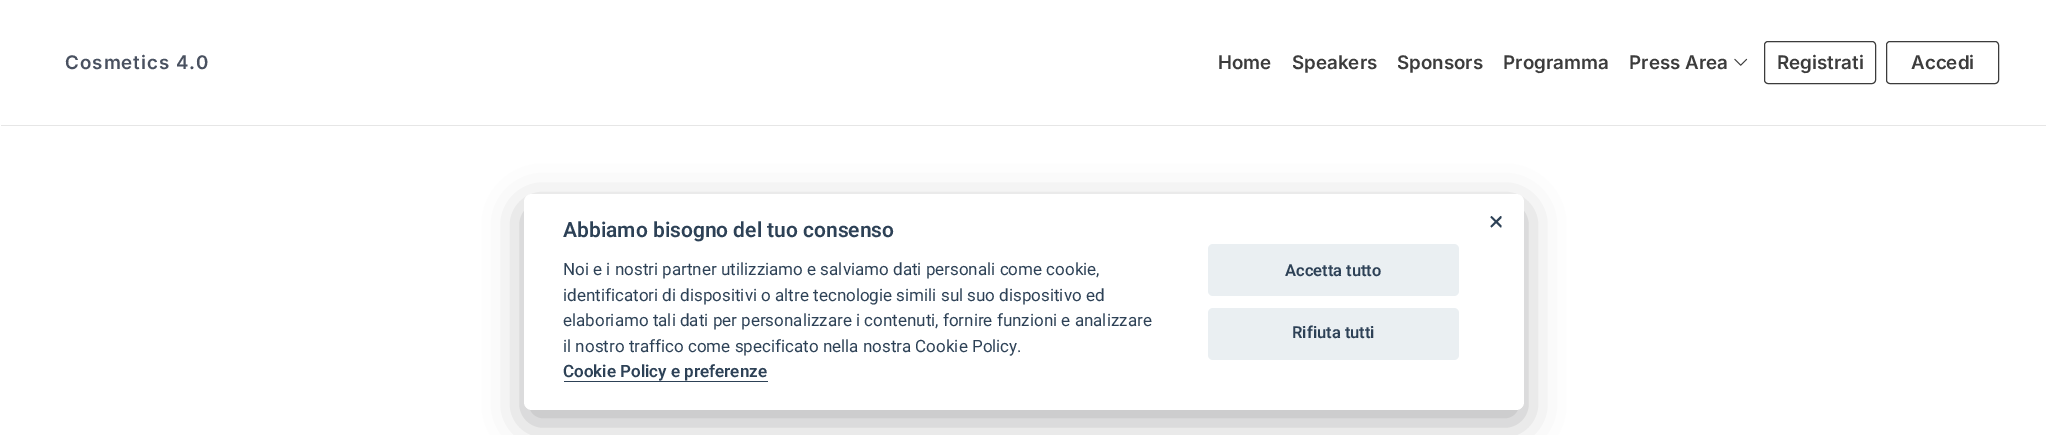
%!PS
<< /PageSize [2046 435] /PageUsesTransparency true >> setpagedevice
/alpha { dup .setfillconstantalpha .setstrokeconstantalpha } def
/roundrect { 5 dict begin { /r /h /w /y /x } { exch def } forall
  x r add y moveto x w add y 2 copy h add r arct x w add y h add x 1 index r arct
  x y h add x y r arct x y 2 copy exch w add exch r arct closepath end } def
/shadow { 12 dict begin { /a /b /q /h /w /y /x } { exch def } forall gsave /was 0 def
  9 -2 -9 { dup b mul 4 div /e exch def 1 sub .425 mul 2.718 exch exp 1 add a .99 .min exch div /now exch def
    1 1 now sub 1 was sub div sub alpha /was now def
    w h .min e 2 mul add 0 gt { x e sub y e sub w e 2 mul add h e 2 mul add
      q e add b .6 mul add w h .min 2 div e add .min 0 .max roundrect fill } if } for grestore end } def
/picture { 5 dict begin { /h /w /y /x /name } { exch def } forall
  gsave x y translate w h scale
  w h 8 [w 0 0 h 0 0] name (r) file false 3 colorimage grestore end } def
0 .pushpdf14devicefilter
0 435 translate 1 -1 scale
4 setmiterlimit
1 setgray
0 0 2046 435 rectfill
0.902 setgray
newpath 1 125 moveto 1 126 lineto 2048 126 lineto 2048 1 lineto 2046 1 lineto 2046 125 lineto closepath fill
/Inter-SemiBold [18.75 0 0 -18.75 0 0] selectfont
0.286 0.318 0.376 setrgbcolor
65 69 moveto 1 0 (Cosmetics 4.0) ashow
0.235 setgray
1218 69 moveto (Home) show
1292 69 moveto (Speakers) show
1397 69 moveto (Sponsors) show
1503 69 moveto (Programma) show
1629 69 moveto (Press Area) show
(img1.rgb) 1734 58 14 8 picture
1764.5 41.5 111 42 3.5 roundrect stroke
1777 69 moveto (Registrati) show
1886.5 41.5 112 42 3.5 roundrect stroke
1911 69 moveto (Accedi) show
0.008 0.008 0.012 setrgbcolor
524 206 1000 217 8 19 0.28 shadow
1 setgray
524 194 1000 216 8 roundrect fill
/Roboto-SemiBold [21 0 0 -21 0 0] selectfont
0.176 0.255 0.337 setrgbcolor
563 237 moveto (Abbiamo bisogno del tuo consenso) show
newpath 1501.5 216.5 moveto 1501.5 217 1501.5 217.5 1501.5 218 curveto 1492 227 lineto 1492 227.5 1491.5 227.5 1491 227 curveto 1490.5 226.5 1490.5 226 1491 225.5 curveto 1500 216.5 lineto 1500.5 216 1501 216 1501.5 216.5 curveto closepath fill
newpath 1491 216.5 moveto 1491.5 216 1492 216 1492 216.5 curveto 1501.5 225.5 lineto 1501.5 226 1501.5 226.5 1501.5 227 curveto 1501 227.5 1500.5 227.5 1500 227 curveto 1491 218 lineto 1490.5 217.5 1490.5 217 1491 216.5 curveto closepath fill
/Roboto-Regular [17 0 0 -17 0 0] selectfont
563 275 moveto (Noi e i nostri partner utilizziamo e salviamo dati personali come cookie,) show
563 301 moveto (identificatori di dispositivi o altre tecnologie simili sul suo dispositivo ed) show
563 326 moveto (elaboriamo tali dati per personalizzare i contenuti, fornire funzioni e analizzare) show
563 352 moveto (il nostro traffico come specificato nella nostra Cookie Policy.) show
/Roboto-SemiBold [17 0 0 -17 0 0] selectfont
563 377 moveto (Cookie Policy e preferenze) show
564 381 204 1 rectfill
0.918 0.937 0.949 setrgbcolor
1208 244 251 52 5 roundrect fill
/Roboto-SemiBold [16.5 0 0 -16.5 0 0] selectfont
0.176 0.255 0.337 setrgbcolor
1285 276 moveto (Accetta tutto) show
0.918 0.937 0.949 setrgbcolor
1208 308 251 52 5 roundrect fill
0.176 0.255 0.337 setrgbcolor
1292 338 moveto (Rifiuta tutti) show
.poppdf14devicefilter showpage
